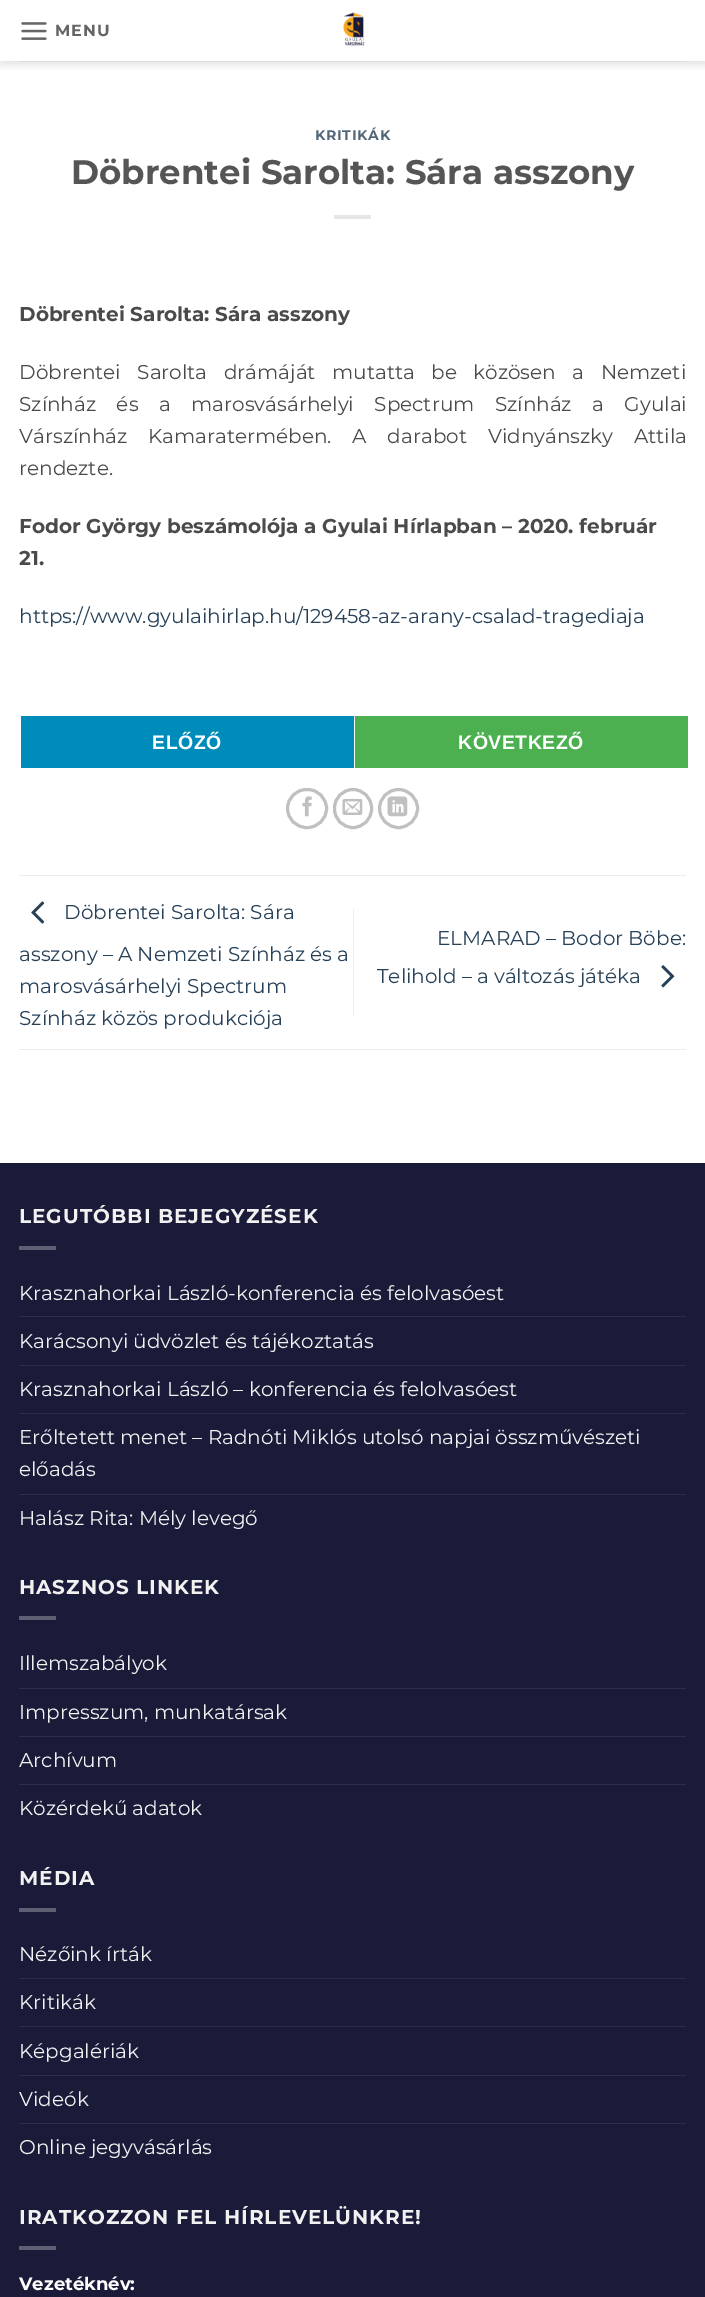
%!PS
<< /PageSize [705 2297] /PageUsesTransparency true >> setpagedevice
/alpha { dup .setfillconstantalpha .setstrokeconstantalpha } def
/roundrect { 5 dict begin { /r /h /w /y /x } { exch def } forall
  x r add y moveto x w add y 2 copy h add r arct x w add y h add x 1 index r arct
  x y h add x y r arct x y 2 copy exch w add exch r arct closepath end } def
/shadow { 12 dict begin { /a /b /q /h /w /y /x } { exch def } forall gsave /was 0 def
  9 -2 -9 { dup b mul 4 div /e exch def 1 sub .425 mul 2.718 exch exp 1 add a .99 .min exch div /now exch def
    1 1 now sub 1 was sub div sub alpha /was now def
    w h .min e 2 mul add 0 gt { x e sub y e sub w e 2 mul add h e 2 mul add
      q e add b .6 mul add w h .min 2 div e add .min 0 .max roundrect fill } if } for grestore end } def
/picture { 5 dict begin { /h /w /y /x /name } { exch def } forall
  gsave x y translate w h scale
  w h 8 [w 0 0 h 0 0] name (r) file false 3 colorimage grestore end } def
0 .pushpdf14devicefilter
0 2297 translate 1 -1 scale
4 setmiterlimit
1 setgray
0 0 705 2297 rectfill
gsave
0 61 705 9 rectclip
0 setgray
1 1 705 62 0 6 0.15 shadow
grestore
(img1.rgb) 21 22 26 18 picture
/Montserrat-Bold [16 0 0 -16 0 0] selectfont
0.396 setgray
55 36 moveto 1 0 (MENU) ashow
(img2.rgb) 343 12 22 34 picture
0.867 setgray
19 61 667 1 rectfill
/Montserrat-Bold [14 0 0 -14 0 0] selectfont
0.318 0.404 0.475 setrgbcolor
315 140 moveto 0.75 0 (KRITIKÁK) ashow
/Montserrat-Bold [34 0 0 -34 0 0] selectfont
0.333 setgray
71 184 moveto (Döbrentei Sarolta: Sára asszony) show
0.902 setgray
334 215 37 4 rectfill
/Montserrat-Bold [20 0 0 -20 0 0] selectfont
0.29 setgray
19 321 moveto (Döbrentei Sarolta: Sára asszony) show
/Montserrat-Regular [20 0 0 -20 0 0] selectfont
19 379 moveto 11.25 0 32 (Döbrentei Sarolta drámáját mutatta be közösen a Nemzeti) widthshow
19 411 moveto 15.25 0 32 (Színház és a marosvásárhelyi Spectrum Színház a Gyulai) widthshow
19 443 moveto 15.5 0 32 (Várszínház Kamaratermében. A darabot Vidnyánszky Attila) widthshow
19 475 moveto (rendezte.) show
/Montserrat-Bold [20 0 0 -20 0 0] selectfont
19 533 moveto (Fodor György beszámolója a Gyulai Hírlapban – 2020. február) show
19 565 moveto (21.) show
/Montserrat-Regular [20 0 0 -20 0 0] selectfont
0.149 0.255 0.345 setrgbcolor
19 623 moveto (https://www.gyulaihirlap.hu/129458-az-arany-csalad-tragediaja) show
0.902 setgray
354 716 1 4 rectfill
0.753 setgray
3 setlinewidth
287.5 789.5 39 38 19 roundrect stroke
(img3.rgb) 302 796 10 21 picture
334.5 789.5 37 38 18.5 roundrect stroke
(img4.rgb) 342 798 21 17 picture
newpath 398.5 808.5 19 0 360 arc closepath stroke
(img5.rgb) 387 796 21 21 picture
0 0.549 0.729 setrgbcolor
21 716 333 52 rectfill
/LiberationSans-Bold [19.5 0 0 -19.5 0 0] selectfont
1 setgray
152 749 moveto 0.5 0 (ELŐZŐ) ashow
0.298 0.686 0.314 setrgbcolor
355 716 333 52 rectfill
1 setgray
458 749 moveto 0.5 0 (KÖVETKEZŐ) ashow
0.925 setgray
19 875 667 1 rectfill
19 1049 667 1 rectfill
(img6.rgb) 31 901 14 23 picture
/Montserrat-Regular [20 0 0 -20 0 0] selectfont
0.149 0.255 0.345 setrgbcolor
64 919 moveto (Döbrentei Sarolta: Sára) show
19 961 moveto (asszony – A Nemzeti Színház és a) show
19 993 moveto (marosvásárhelyi Spectrum) show
19 1025 moveto (Színház közös produkciója) show
0.925 setgray
353 909 1 107 rectfill
0.149 0.255 0.345 setrgbcolor
437 945 moveto (ELMARAD – Bodor Böbe:) show
377 983 moveto (Telihold – a változás játéka) show
(img7.rgb) 661 965 14 23 picture
0.102 0.106 0.224 setrgbcolor
0 1164 705 1133 rectfill
0.098 0.102 0.212 setrgbcolor
0 1163 705 1 rectfill
/Montserrat-Bold [20 0 0 -20 0 0] selectfont
0.945 setgray
19 1223 moveto 1 0 (LEGUTÓBBI BEJEGYZÉSEK) ashow
0.373 0.373 0.455 setrgbcolor
19 1246 37 4 rectfill
/Montserrat-Regular [20 0 0 -20 0 0] selectfont
0.945 setgray
19 1300 moveto (Krasznahorkai László-konferencia és felolvasóest) show
0.173 0.176 0.286 setrgbcolor
19 1316 667 1 rectfill
0.945 setgray
19 1348 moveto (Karácsonyi üdvözlet és tájékoztatás) show
0.173 0.176 0.286 setrgbcolor
19 1365 667 1 rectfill
0.945 setgray
19 1396 moveto (Krasznahorkai László – konferencia és felolvasóest) show
0.173 0.176 0.286 setrgbcolor
19 1413 667 1 rectfill
0.945 setgray
19 1444 moveto (Erőltetett menet – Radnóti Miklós utolsó napjai összművészeti) show
19 1476 moveto (előadás) show
0.173 0.176 0.286 setrgbcolor
19 1494 667 1 rectfill
0.945 setgray
19 1525 moveto (Halász Rita: Mély levegő) show
/Montserrat-Bold [20 0 0 -20 0 0] selectfont
19 1594 moveto 1 0 (HASZNOS LINKEK) ashow
0.373 0.373 0.455 setrgbcolor
19 1616 37 4 rectfill
/Montserrat-Regular [20 0 0 -20 0 0] selectfont
0.945 setgray
19 1670 moveto (Illemszabályok) show
0.173 0.176 0.286 setrgbcolor
19 1688 667 1 rectfill
0.945 setgray
19 1719 moveto (Impresszum, munkatársak) show
0.173 0.176 0.286 setrgbcolor
19 1736 667 1 rectfill
0.945 setgray
19 1767 moveto (Archívum) show
0.173 0.176 0.286 setrgbcolor
19 1784 667 1 rectfill
0.945 setgray
19 1815 moveto (Közérdekű adatok) show
/Montserrat-Bold [20 0 0 -20 0 0] selectfont
19 1885 moveto 1 0 (MÉDIA) ashow
0.373 0.373 0.455 setrgbcolor
19 1908 37 4 rectfill
/Montserrat-Regular [20 0 0 -20 0 0] selectfont
0.945 setgray
19 1961 moveto (Nézőink írták) show
0.173 0.176 0.286 setrgbcolor
19 1978 667 1 rectfill
0.945 setgray
19 2009 moveto (Kritikák) show
0.173 0.176 0.286 setrgbcolor
19 2026 667 1 rectfill
0.945 setgray
19 2058 moveto (Képgalériák) show
0.173 0.176 0.286 setrgbcolor
19 2075 667 1 rectfill
0.945 setgray
19 2106 moveto (Videók) show
0.173 0.176 0.286 setrgbcolor
19 2123 667 1 rectfill
0.945 setgray
19 2154 moveto (Online jegyvásárlás) show
/Montserrat-Bold [20 0 0 -20 0 0] selectfont
19 2224 moveto 1 0 (IRATKOZZON FEL HÍRLEVELÜNKRE!) ashow
0.373 0.373 0.455 setrgbcolor
19 2246 37 4 rectfill
/Montserrat-Bold [18 0 0 -18 0 0] selectfont
1 setgray
19 2290 moveto (Vezetéknév:) show
.poppdf14devicefilter showpage
